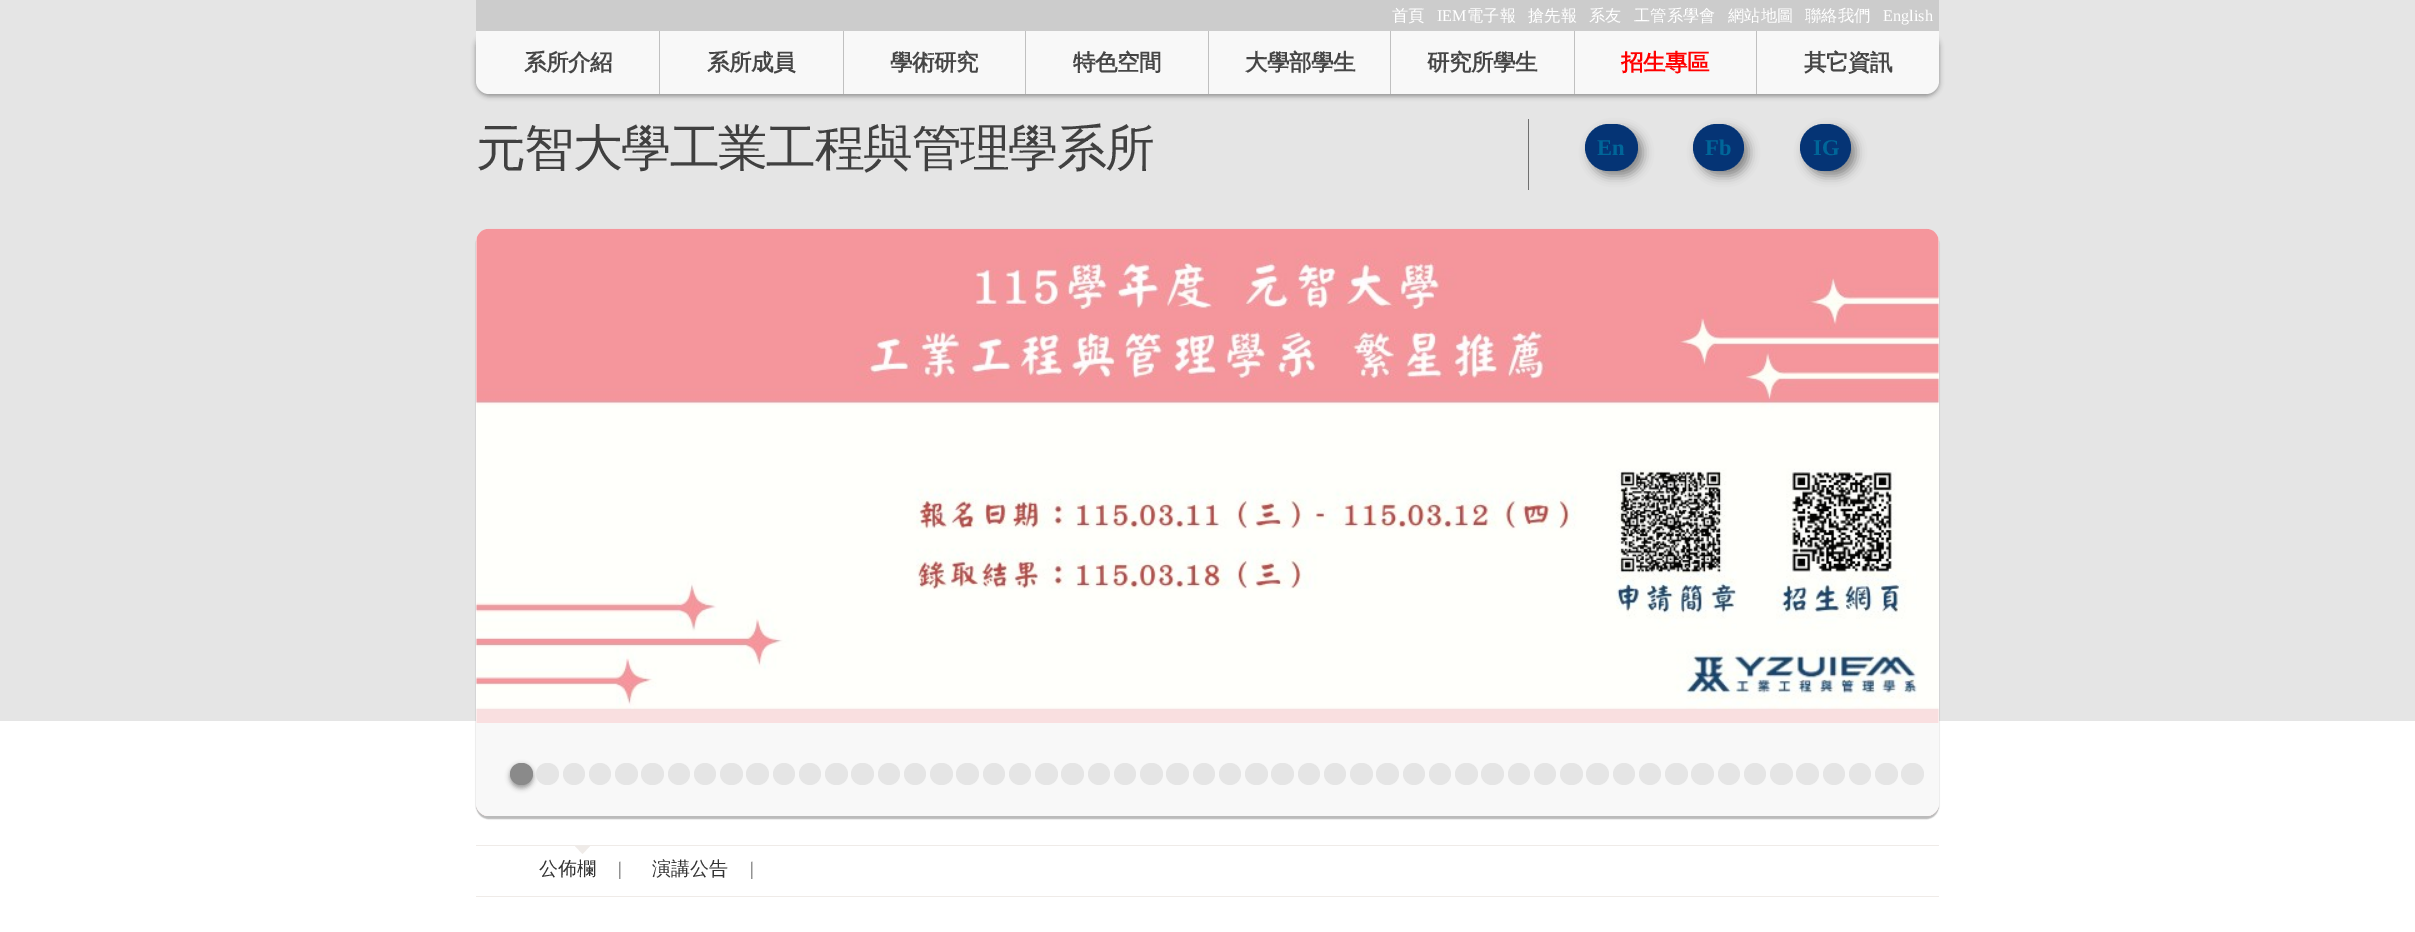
%!PS
<< /PageSize [2415 932] /PageUsesTransparency true >> setpagedevice
/alpha { dup .setfillconstantalpha .setstrokeconstantalpha } def
/roundrect { 5 dict begin { /r /h /w /y /x } { exch def } forall
  x r add y moveto x w add y 2 copy h add r arct x w add y h add x 1 index r arct
  x y h add x y r arct x y 2 copy exch w add exch r arct closepath end } def
/shadow { 12 dict begin { /a /b /q /h /w /y /x } { exch def } forall gsave /was 0 def
  9 -2 -9 { dup b mul 4 div /e exch def 1 sub .425 mul 2.718 exch exp 1 add a .99 .min exch div /now exch def
    1 1 now sub 1 was sub div sub alpha /was now def
    w h .min e 2 mul add 0 gt { x e sub y e sub w e 2 mul add h e 2 mul add
      q e add b .6 mul add w h .min 2 div e add .min 0 .max roundrect fill } if } for grestore end } def
/picture { 5 dict begin { /h /w /y /x /name } { exch def } forall
  gsave x y translate w h scale
  w h 8 [w 0 0 h 0 0] name (r) file false 3 colorimage grestore end } def
0 .pushpdf14devicefilter
0 932 translate 1 -1 scale
4 setmiterlimit
1 setgray
0 0 2415 932 rectfill
0.898 setgray
0 0 2415 721 rectfill
0 setgray
476 34 1463 62 13 2.5 0.37 shadow
0.8 setgray
476 0 1463 31 rectfill
/WenQuanYiZenHei-Medium [16.25 0 0 -16.25 0 0] selectfont
1 setgray
1392 21 moveto (首頁) show
/LiberationSerif-Regular [16.25 0 0 -16.25 0 0] selectfont
1437 21 moveto (IEM) show
/WenQuanYiZenHei-Medium [16.25 0 0 -16.25 0 0] selectfont
1467 21 moveto (電子報) show
1528 21 moveto (搶先報) show
1589 21 moveto (系友) show
1634 21 moveto (工管系學會) show
1728 21 moveto (網站地圖) show
1805 21 moveto (聯絡我們) show
/LiberationSerif-Regular [16.25 0 0 -16.25 0 0] selectfont
1883 21 moveto (English) show
0.973 setgray
newpath 476 31 moveto 1939 31 lineto 1939 81 lineto 1939 88 1933 94 1926 94 curveto 489 94 lineto 482 94 476 88 476 81 curveto closepath fill
/WenQuanYiZenHei-Bold [22.5 0 0 -22.5 0 0] selectfont
0.275 setgray
524 70 moveto -0.5 0 (系所介紹) ashow
0.753 setgray
659 31 1 63 rectfill
0.275 setgray
707 70 moveto -0.5 0 (系所成員) ashow
0.753 setgray
843 31 1 63 rectfill
0.275 setgray
890 70 moveto -0.5 0 (學術研究) ashow
0.753 setgray
1025 31 1 63 rectfill
0.275 setgray
1073 70 moveto -0.5 0 (特色空間) ashow
0.753 setgray
1208 31 1 63 rectfill
0.275 setgray
1245 70 moveto -0.5 0 (大學部學生) ashow
0.753 setgray
1390 31 1 63 rectfill
0.275 setgray
1427 70 moveto -0.5 0 (研究所學生) ashow
0.753 setgray
1574 31 1 63 rectfill
1 0 0 setrgbcolor
1621 70 moveto -0.5 0 (招生專區) ashow
0.753 setgray
1756 31 1 63 rectfill
0.275 setgray
1804 70 moveto -0.5 0 (其它資訊) ashow
/WenQuanYiZenHei-Medium [50 0 0 -50 0 0] selectfont
0.251 setgray
476 165 moveto -1.6 0 (元智大學工業工程與管理學系所) ashow
0.439 setgray
1528 119 1 71 rectfill
0 setgray
1590 129 53 47 23.5 5 0.4 shadow
0.02 0.204 0.459 setrgbcolor
1585 124 53 47 23.5 roundrect fill
/LiberationSerif-Bold [22.5 0 0 -22.5 0 0] selectfont
0 0.4 0.6 setrgbcolor
1597 155 moveto (En) show
0 setgray
1698 129 51 47 23.5 5 0.4 shadow
0.02 0.204 0.459 setrgbcolor
1693 124 51 47 23.5 roundrect fill
0 0.4 0.6 setrgbcolor
1705 155 moveto (Fb) show
0 setgray
1805 129 51 47 23.5 5 0.4 shadow
0.02 0.204 0.459 setrgbcolor
1800 124 51 47 23.5 roundrect fill
0 0.4 0.6 setrgbcolor
1813 155 moveto (IG) show
0 setgray
476 231 1463 588 13 0.5 0.27 shadow
1 setgray
476 229 1463 587 13 roundrect fill
(img1.rgb) 476 228 1463 588 picture
0.973 setgray
newpath 476 723 moveto 1939 723 lineto 1939 803 lineto 1939 810 1933 816 1926 816 curveto 489 816 lineto 482 816 476 810 476 803 curveto closepath fill
0 setgray
510 765 23 23 11.5 2.5 0.37 shadow
0.541 setgray
510 763 23 22 11 roundrect fill
0.898 setgray
536 763 23 22 11 roundrect fill
newpath 574 774 11 0 360 arc closepath fill
newpath 600 774 11 0 360 arc closepath fill
615 763 23 22 11 roundrect fill
641 763 23 22 11 roundrect fill
newpath 679 774 11 0 360 arc closepath fill
newpath 705 774 11 0 360 arc closepath fill
720 763 23 22 11 roundrect fill
746 763 23 22 11 roundrect fill
newpath 784 774 11 0 360 arc closepath fill
newpath 810 774 11 0 360 arc closepath fill
825 763 23 22 11 roundrect fill
851 763 23 22 11 roundrect fill
newpath 889 774 11 0 360 arc closepath fill
newpath 915 774 11 0 360 arc closepath fill
930 763 23 22 11 roundrect fill
956 763 23 22 11 roundrect fill
newpath 994 774 11 0 360 arc closepath fill
newpath 1020 774 11 0 360 arc closepath fill
1035 763 23 22 11 roundrect fill
1061 763 23 22 11 roundrect fill
newpath 1099 774 11 0 360 arc closepath fill
newpath 1125 774 11 0 360 arc closepath fill
1140 763 23 22 11 roundrect fill
1166 763 23 22 11 roundrect fill
newpath 1204 774 11 0 360 arc closepath fill
newpath 1230 774 11 0 360 arc closepath fill
1245 763 23 22 11 roundrect fill
1271 763 23 22 11 roundrect fill
newpath 1309 774 11 0 360 arc closepath fill
newpath 1335 774 11 0 360 arc closepath fill
1350 763 23 22 11 roundrect fill
1376 763 23 22 11 roundrect fill
newpath 1414 774 11 0 360 arc closepath fill
newpath 1440 774 11 0 360 arc closepath fill
1455 763 23 22 11 roundrect fill
1481 763 23 22 11 roundrect fill
newpath 1519 774 11 0 360 arc closepath fill
newpath 1545 774 11 0 360 arc closepath fill
1560 763 23 22 11 roundrect fill
1586 763 23 22 11 roundrect fill
newpath 1624 774 11 0 360 arc closepath fill
newpath 1650 774 11 0 360 arc closepath fill
1665 763 23 22 11 roundrect fill
1691 763 23 22 11 roundrect fill
newpath 1729 774 11 0 360 arc closepath fill
newpath 1755 774 11 0 360 arc closepath fill
1770 763 23 22 11 roundrect fill
1796 763 23 22 11 roundrect fill
newpath 1834 774 11 0 360 arc closepath fill
newpath 1860 774 11 0 360 arc closepath fill
1875 763 23 22 11 roundrect fill
1901 763 23 22 11 roundrect fill
0.937 0.922 0.91 setrgbcolor
476 845 1463 1 rectfill
476 896 1463 1 rectfill
newpath 575 846 moveto 590 846 lineto 582.5 854 lineto closepath fill
/WenQuanYiZenHei-Medium [19 0 0 -19 0 0] selectfont
0.2 setgray
539 875 moveto (公佈欄) show
/LiberationSerif-Regular [19 0 0 -19 0 0] selectfont
618 875 moveto (|) show
/WenQuanYiZenHei-Medium [19 0 0 -19 0 0] selectfont
652 875 moveto (演講公告) show
/LiberationSerif-Regular [19 0 0 -19 0 0] selectfont
750 875 moveto (|) show
.poppdf14devicefilter showpage
